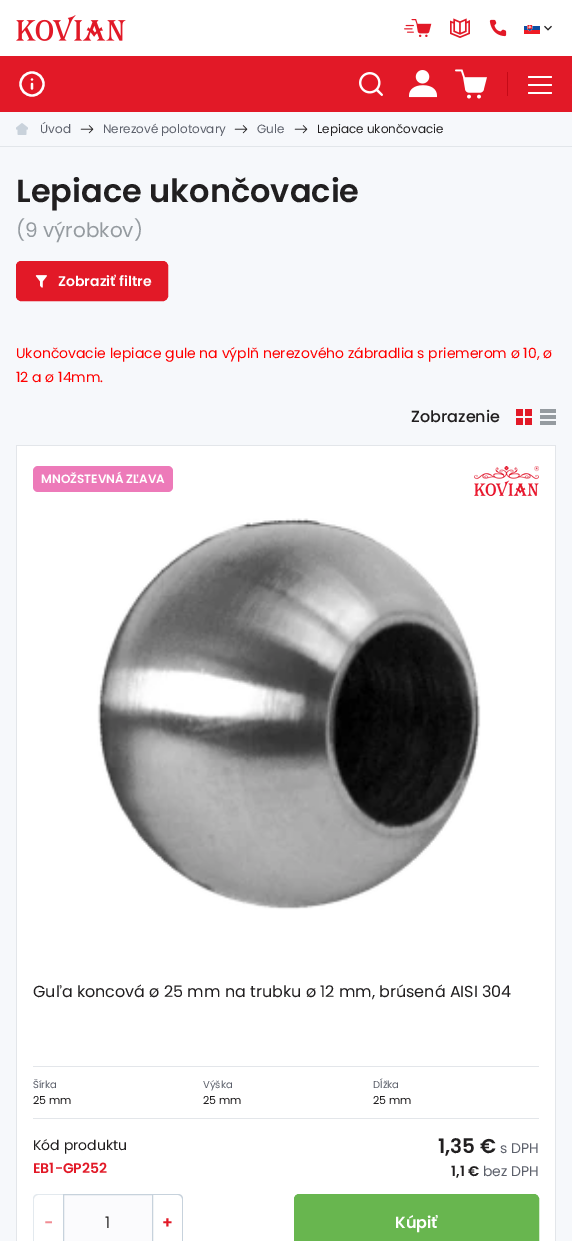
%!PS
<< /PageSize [572 1241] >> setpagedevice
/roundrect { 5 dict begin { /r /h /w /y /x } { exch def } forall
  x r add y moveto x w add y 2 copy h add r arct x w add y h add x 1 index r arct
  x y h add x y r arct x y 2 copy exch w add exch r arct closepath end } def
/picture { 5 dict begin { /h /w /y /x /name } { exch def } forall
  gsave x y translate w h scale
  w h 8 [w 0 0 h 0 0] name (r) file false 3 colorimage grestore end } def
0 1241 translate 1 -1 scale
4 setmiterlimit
0.965 0.973 0.984 setrgbcolor
0 0 572 1241 rectfill
1 setgray
0 0 572 56 rectfill
(img1.rgb) 16 15 110 26 picture
(img2.rgb) 404 19 28 18 picture
(img3.rgb) 450 18 20 20 picture
(img4.rgb) 489 19 18 18 picture
(img5.rgb) 524 25 16 9 picture
(img6.rgb) 544 25 8 6 picture
0.886 0.098 0.153 setrgbcolor
0 56 572 56 rectfill
1 setgray
2.3 setlinewidth
newpath 32 84 11.5 0 360 arc closepath stroke
1 setlinecap
1 setlinejoin
newpath 32 88.5 moveto 32 84 lineto 32 79.5 moveto 32 79.5 lineto stroke
(img7.rgb) 359 72 24 24 picture
(img8.rgb) 409 70 28 28 picture
(img9.rgb) 455 69 32 30 picture
0.773 0.039 0.09 setrgbcolor
507 72 1 24 rectfill
1 setgray
528 76 24 2 1 roundrect fill
528 84 24 2 1 roundrect fill
528 92 24 2 1 roundrect fill
0.886 0.902 0.918 setrgbcolor
0 146 572 1 rectfill
(img10.rgb) 16 123 12 12 picture
/Poppins-Regular [12 0 0 -12 0 0] selectfont
0.361 0.376 0.42 setrgbcolor
40 133 moveto (Úvod) show
(img11.rgb) 80 125 14 9 picture
103 133 moveto (Nerezové polotovary) show
(img11.rgb) 234 125 14 9 picture
257 133 moveto (Gule) show
(img11.rgb) 294 125 14 9 picture
0.129 0.122 0.125 setrgbcolor
317 133 moveto (Lepiace ukončovacie) show
/Poppins-SemiBold [32 0 0 -32 0 0] selectfont
16 202 moveto (Lepiace ukončovacie) show
/Poppins-Regular [20 0 0 -20 0 0] selectfont
0.584 0.608 0.627 setrgbcolor
16 237 moveto (\(9 výrobkov\)) show
0.886 0.098 0.153 setrgbcolor
16.5 261.5 151 39 4.5 roundrect gsave fill grestore
1 setlinewidth
0 setlinecap
0 setlinejoin
stroke
(img12.rgb) 35 275 12 13 picture
/Poppins-SemiBold [14 0 0 -14 0 0] selectfont
1 setgray
58 286 moveto (Zobraziť filtre) show
/Poppins-Regular [14 0 0 -14 0 0] selectfont
1 0 0 setrgbcolor
16 358 moveto (Ukončovacie lepiace gule na výplň nerezového zábradlia s priemerom ø 10, ø) show
16 382 moveto (12 a ø 14mm.) show
/Poppins-Medium [16 0 0 -16 0 0] selectfont
0.129 0.122 0.125 setrgbcolor
411 422 moveto (Zobrazenie) show
(img13.rgb) 516 409 16 16 picture
(img14.rgb) 540 409 16 16 picture
0.89 0.902 0.918 setrgbcolor
16 445 540 796 rectfill
1 setgray
17 446 538 795 rectfill
0.929 0.478 0.725 setrgbcolor
33 466 140 26 5 roundrect fill
/Poppins-SemiBold [12 0 0 -12 0 0] selectfont
1 setgray
41 483 moveto (MNOŽSTEVNÁ ZĽAVA) show
(img15.rgb) 474 466 65 30 picture
(img16.rgb) 97 518 384 392 picture
/Poppins-Regular [16 0 0 -16 0 0] selectfont
0.129 0.122 0.125 setrgbcolor
33 997 moveto (Guľa koncová ø 25 mm na trubku ø 12 mm, brúsená AISI 304) show
0.89 0.902 0.918 setrgbcolor
33 1066 506 1 rectfill
33 1118 506 1 rectfill
/Poppins-Regular [10 0 0 -10 0 0] selectfont
0.361 0.376 0.42 setrgbcolor
33 1088 moveto (Šírka) show
/Poppins-Regular [11 0 0 -11 0 0] selectfont
0.129 0.122 0.125 setrgbcolor
33 1104 moveto (25 mm) show
/Poppins-Regular [10 0 0 -10 0 0] selectfont
0.361 0.376 0.42 setrgbcolor
203 1088 moveto (Výška) show
/Poppins-Regular [11 0 0 -11 0 0] selectfont
0.129 0.122 0.125 setrgbcolor
203 1104 moveto (25 mm) show
/Poppins-Regular [10 0 0 -10 0 0] selectfont
0.361 0.376 0.42 setrgbcolor
373 1088 moveto (Dĺžka) show
/Poppins-Regular [11 0 0 -11 0 0] selectfont
0.129 0.122 0.125 setrgbcolor
373 1104 moveto (25 mm) show
/Poppins-Regular [14 0 0 -14 0 0] selectfont
33 1150 moveto (Kód produktu) show
/Poppins-SemiBold [14 0 0 -14 0 0] selectfont
0.886 0.098 0.153 setrgbcolor
33 1173 moveto (EB1-GP252) show
/Poppins-SemiBold [20 0 0 -20 0 0] selectfont
0.129 0.122 0.125 setrgbcolor
438 1153 moveto (1,35 €) show
/Poppins-Regular [14 0 0 -14 0 0] selectfont
0.361 0.376 0.42 setrgbcolor
500 1153 moveto (s DPH) show
/Poppins-SemiBold [14 0 0 -14 0 0] selectfont
0.129 0.122 0.125 setrgbcolor
451 1176 moveto (1,1 €) show
/Poppins-Regular [14 0 0 -14 0 0] selectfont
0.361 0.376 0.42 setrgbcolor
483 1176 moveto (bez DPH) show
0.89 0.914 0.933 setrgbcolor
newpath 38 1194 moveto 63 1194 lineto 63 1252 lineto 38 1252 lineto 35 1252 33 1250 33 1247 curveto 33 1199 lineto 33 1196 35 1194 38 1194 curveto closepath 38 1195 moveto 63 1195 lineto 63 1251 lineto 38 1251 lineto 36 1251 34 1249 34 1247 curveto 34 1199 lineto 34 1197 36 1195 38 1195 curveto closepath eofill
/Poppins-SemiBold [16 0 0 -16 0 0] selectfont
0.945 0.549 0.576 setrgbcolor
44 1228 moveto (-) show
0.984 0.984 0.992 setrgbcolor
newpath 63.5 1194.5 moveto 152.5 1194.5 lineto 152.5 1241.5 lineto 63.5 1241.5 lineto closepath gsave fill grestore
0.78 0.824 0.863 setrgbcolor
stroke
/Poppins-Regular [16 0 0 -16 0 0] selectfont
0.129 0.122 0.125 setrgbcolor
105 1228 moveto (1) show
0.78 0.824 0.863 setrgbcolor
newpath 153 1194 moveto 178 1194 lineto 181 1194 183 1196 183 1199 curveto 183 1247 lineto 183 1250 181 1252 178 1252 curveto 153 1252 lineto closepath 153 1195 moveto 178 1195 lineto 180 1195 182 1197 182 1199 curveto 182 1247 lineto 182 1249 180 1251 178 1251 curveto 153 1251 lineto closepath eofill
/Poppins-SemiBold [16 0 0 -16 0 0] selectfont
0.886 0.098 0.153 setrgbcolor
162 1228 moveto (+) show
0.408 0.714 0.31 setrgbcolor
294.5 1194.5 244 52 4.5 roundrect gsave fill grestore
stroke
1 setgray
395 1228 moveto (Kúpiť) show
showpage
